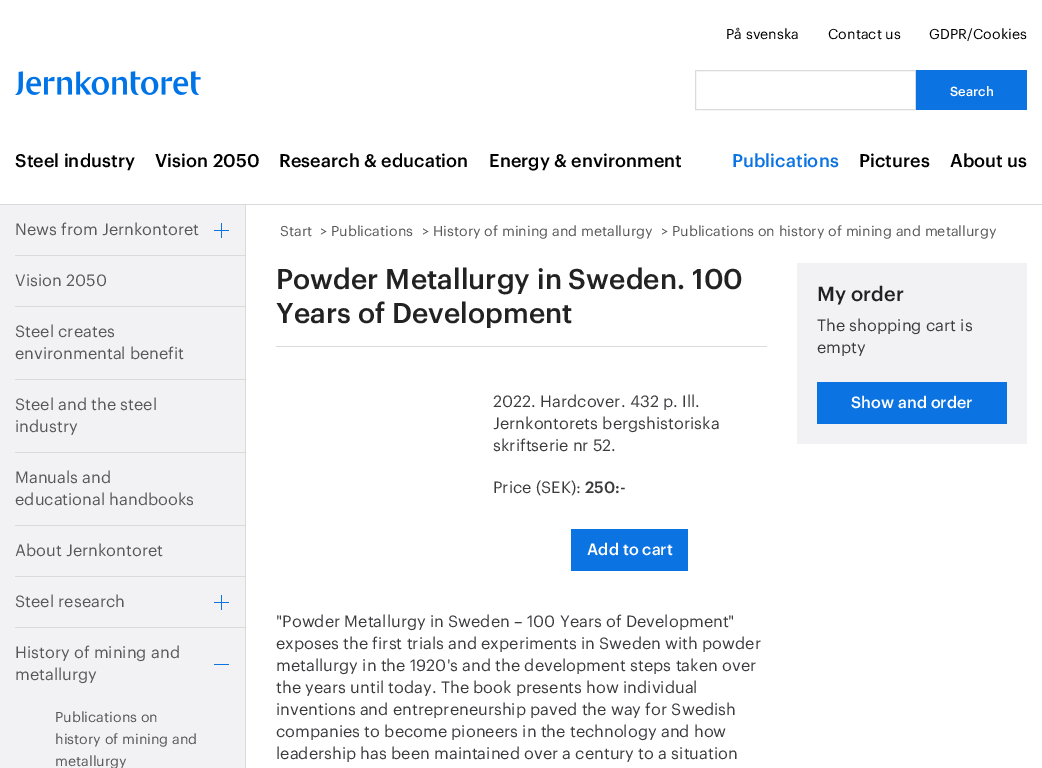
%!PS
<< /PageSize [1042 768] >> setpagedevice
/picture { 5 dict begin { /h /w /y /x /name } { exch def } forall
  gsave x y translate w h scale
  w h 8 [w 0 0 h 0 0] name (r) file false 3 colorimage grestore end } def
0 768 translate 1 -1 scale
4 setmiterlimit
1 setgray
0 0 1042 768 rectfill
/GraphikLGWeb-Regular [14 0 0 -14 0 0] selectfont
0 setgray
726 39 moveto (På svenska) show
828 39 moveto (Contact us) show
929 39 moveto (GDPR/Cookies) show
(img1.rgb) 15 71 186 24 picture
0.855 0.855 0.859 setrgbcolor
695.5 70.5 220 39 rectstroke
0.047 0.451 0.89 setrgbcolor
916 70 111 40 rectfill
/GraphikLGWeb-Medium [13 0 0 -13 0 0] selectfont
1 setgray
950 96 moveto (Search) show
0.855 0.855 0.859 setrgbcolor
0 204 1042 1 rectfill
/GraphikLGWeb-Medium [18 0 0 -18 0 0] selectfont
0 setgray
15 167 moveto (Steel industry) show
155 167 moveto (Vision 2050) show
279 167 moveto (Research & education) show
489 167 moveto (Energy & environment) show
0.047 0.451 0.89 setrgbcolor
732 167 moveto (Publications) show
0 setgray
859 167 moveto (Pictures) show
950 167 moveto (About us) show
0.949 0.949 0.961 setrgbcolor
0 205 245 563 rectfill
0.855 0.855 0.859 setrgbcolor
245 205 1 563 rectfill
15 255 230 1 rectfill
/GraphikLGWeb-Regular [16 0 0 -16 0 0] selectfont
0.345 0.345 0.353 setrgbcolor
15 235 moveto (News from Jernkontoret) show
0.047 0.451 0.89 setrgbcolor
214 230 15 1 rectfill
221 223 1 15 rectfill
0.855 0.855 0.859 setrgbcolor
15 306 230 1 rectfill
0.345 0.345 0.353 setrgbcolor
15 286 moveto (Vision 2050) show
0.855 0.855 0.859 setrgbcolor
15 379 230 1 rectfill
0.345 0.345 0.353 setrgbcolor
15 337 moveto (Steel creates) show
15 359 moveto (environmental benefit) show
0.855 0.855 0.859 setrgbcolor
15 452 230 1 rectfill
0.345 0.345 0.353 setrgbcolor
15 410 moveto (Steel and the steel) show
15 432 moveto (industry) show
0.855 0.855 0.859 setrgbcolor
15 525 230 1 rectfill
0.345 0.345 0.353 setrgbcolor
15 483 moveto (Manuals and) show
15 505 moveto (educational handbooks) show
0.855 0.855 0.859 setrgbcolor
15 576 230 1 rectfill
0.345 0.345 0.353 setrgbcolor
15 556 moveto (About Jernkontoret) show
0.855 0.855 0.859 setrgbcolor
15 627 230 1 rectfill
0.345 0.345 0.353 setrgbcolor
15 607 moveto (Steel research) show
0.047 0.451 0.89 setrgbcolor
214 602 15 1 rectfill
221 595 1 15 rectfill
0.345 0.345 0.353 setrgbcolor
15 658 moveto (History of mining and) show
15 680 moveto (metallurgy) show
0.047 0.451 0.89 setrgbcolor
214 664 15 1 rectfill
/GraphikLGWeb-Regular [14 0 0 -14 0 0] selectfont
0.345 0.345 0.353 setrgbcolor
55 722 moveto (Publications on) show
55 744 moveto (history of mining and) show
55 766 moveto (metallurgy) show
280 236 moveto (Start) show
320 236 moveto (>) show
331 236 moveto (Publications) show
422 236 moveto (>) show
433 236 moveto (History of mining and metallurgy) show
661 236 moveto (>) show
672 236 moveto (Publications on history of mining and metallurgy) show
0.855 0.855 0.859 setrgbcolor
276 346 491 1 rectfill
/GraphikLGWeb-Medium [28 0 0 -28 0 0] selectfont
0.133 setgray
276 289 moveto (Powder Metallurgy in Sweden. 100) show
276 323 moveto (Years of Development) show
/GraphikLGWeb-Regular [16 0 0 -16 0 0] selectfont
0.235 0.227 0.239 setrgbcolor
493 407 moveto (2022. Hardcover. 432 p. Ill.) show
493 429 moveto (Jernkontorets bergshistoriska) show
493 451 moveto (skriftserie nr 52.) show
493 493 moveto (Price \(SEK\):) show
/GraphikLGWeb-Medium [16 0 0 -16 0 0] selectfont
585 493 moveto (250:-) show
0.047 0.451 0.89 setrgbcolor
571 529 117 42 rectfill
1 setgray
587 555 moveto (Add to cart) show
/GraphikLGWeb-Regular [16 0 0 -16 0 0] selectfont
0.235 0.227 0.239 setrgbcolor
276 627 moveto ("Powder Metallurgy in Sweden – 100 Years of Development") show
276 649 moveto (exposes the first trials and experiments in Sweden with powder) show
276 671 moveto (metallurgy in the 1920's and the development steps taken over) show
276 693 moveto (the years until today. The book presents how individual) show
276 715 moveto (inventions and entrepreneurship paved the way for Swedish) show
276 737 moveto (companies to become pioneers in the technology and how) show
276 759 moveto (leadership has been maintained over a century to a situation) show
0.949 0.949 0.961 setrgbcolor
797 263 230 181 rectfill
/GraphikLGWeb-Medium [20 0 0 -20 0 0] selectfont
0.133 setgray
817 301 moveto (My order) show
/GraphikLGWeb-Regular [16 0 0 -16 0 0] selectfont
0.235 0.227 0.239 setrgbcolor
817 331 moveto (The shopping cart is) show
817 353 moveto (empty) show
0.047 0.451 0.89 setrgbcolor
817 382 190 42 rectfill
/GraphikLGWeb-Medium [16 0 0 -16 0 0] selectfont
1 setgray
851 408 moveto (Show and order) show
showpage
